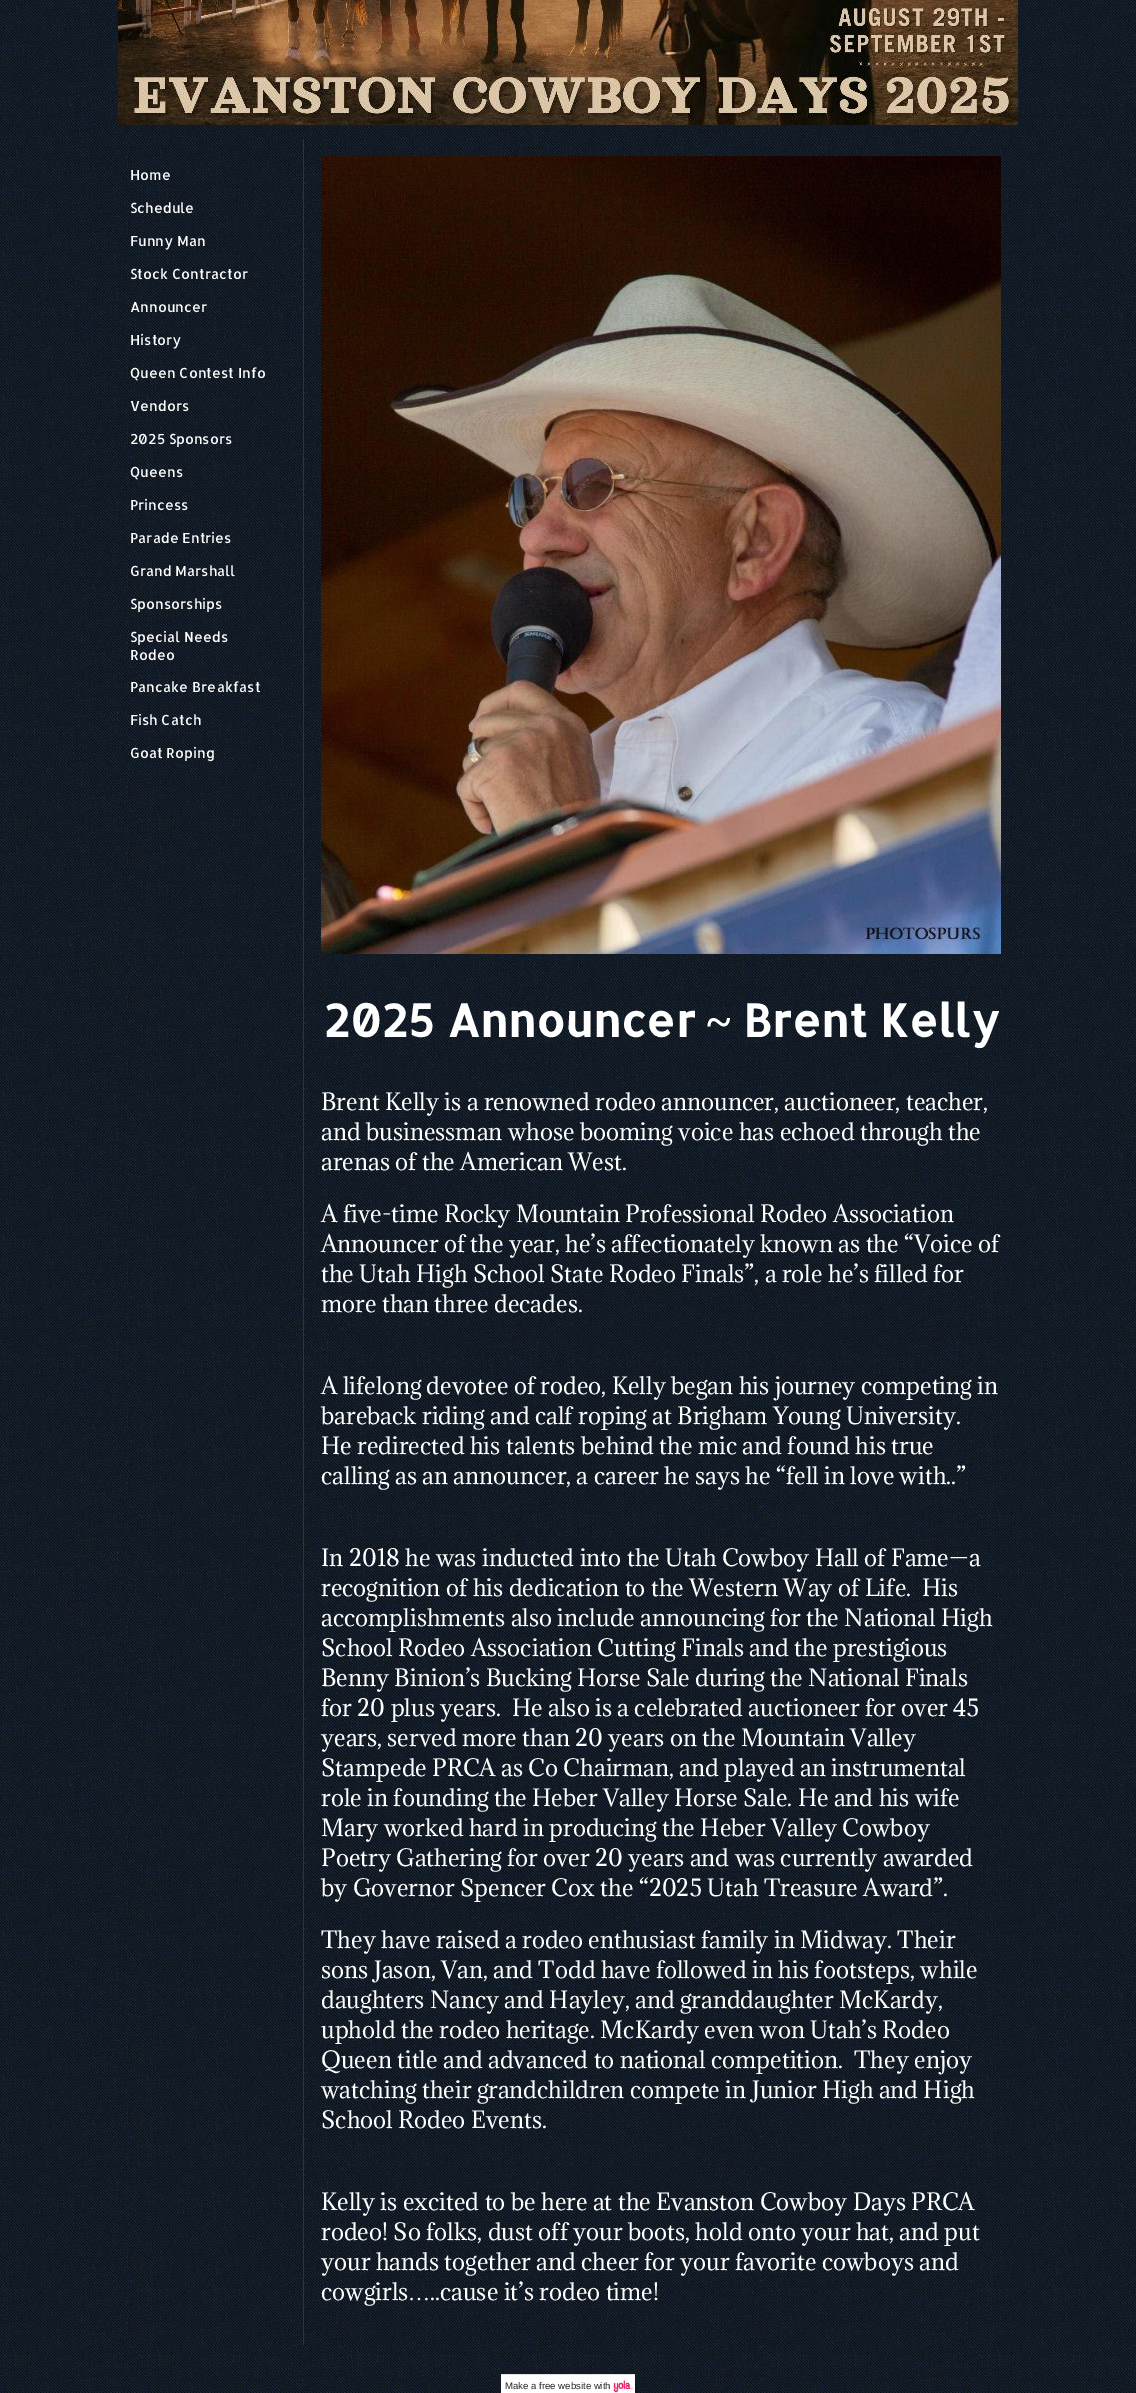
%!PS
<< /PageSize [1136 2393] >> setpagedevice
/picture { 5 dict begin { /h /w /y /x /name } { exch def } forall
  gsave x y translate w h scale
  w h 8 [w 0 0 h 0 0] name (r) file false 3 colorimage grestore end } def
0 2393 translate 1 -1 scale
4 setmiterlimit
1 setgray
0 0 1136 2393 rectfill
(img1.rgb) 0 0 1136 2393 picture
(img2.rgb) 118 0 900 125 picture
/Allerta-Regular [14 0 0 -14 0 0] selectfont
130 180 moveto (Home) show
130 213 moveto (Schedule) show
130 246 moveto (Funny Man) show
130 279 moveto (Stock Contractor) show
130 312 moveto (Announcer) show
130 345 moveto (History) show
130 378 moveto (Queen Contest Info) show
130 411 moveto (Vendors) show
130 444 moveto (2025 Sponsors) show
130 477 moveto (Queens) show
130 510 moveto (Princess) show
130 543 moveto (Parade Entries) show
130 576 moveto (Grand Marshall) show
130 609 moveto (Sponsorships) show
130 642 moveto (Special Needs) show
130 660 moveto (Rodeo) show
130 692 moveto (Pancake Breakfast) show
130 725 moveto (Fish Catch) show
130 758 moveto (Goat Roping) show
0.2 setgray
303 139 1 2206 rectfill
(img3.rgb) 321 156 680 798 picture
/Allerta-Bold [45 0 0 -45 0 0] selectfont
1 setgray
323 1037 moveto (2025 Announcer) show
/LiberationSerif-Bold [45 0 0 -45 0 0] selectfont
707 1037 moveto (~) show
/Allerta-Bold [45 0 0 -45 0 0] selectfont
743 1037 moveto (Brent Kelly) show
/Adamina-Regular [22 0 0 -22 0 0] selectfont
321 1110 moveto (Brent Kelly is a renowned rodeo announcer, auctioneer, teacher,) show
321 1140 moveto (and businessman whose booming voice has echoed through the) show
321 1170 moveto (arenas of the American West.) show
321 1222 moveto (A five-time Rocky Mountain Professional Rodeo Association) show
321 1252 moveto (Announcer of the year, he’s affectionately known as the “Voice of) show
321 1282 moveto (the Utah High School State Rodeo Finals”, a role he’s filled for) show
321 1312 moveto (more than three decades.) show
321 1394 moveto (A lifelong devotee of rodeo, Kelly began his journey competing in) show
321 1424 moveto (bareback riding and calf roping at Brigham Young University.) show
321 1454 moveto (He redirected his talents behind the mic and found his true) show
321 1484 moveto (calling as an announcer, a career he says he “fell in love with..”) show
321 1566 moveto (In 2018 he was inducted into the Utah Cowboy Hall of Fame—a) show
321 1596 moveto (recognition of his dedication to the Western Way of Life.  His) show
321 1626 moveto (accomplishments also include announcing for the National High) show
321 1656 moveto (School Rodeo Association Cutting Finals and the prestigious) show
321 1686 moveto (Benny Binion’s Bucking Horse Sale during the National Finals) show
321 1716 moveto (for 20 plus years.  He also is a celebrated auctioneer for over 45) show
321 1746 moveto (years, served more than 20 years on the Mountain Valley) show
321 1776 moveto (Stampede PRCA as Co Chairman, and played an instrumental) show
321 1806 moveto (role in founding the Heber Valley Horse Sale. He and his wife) show
321 1836 moveto (Mary worked hard in producing the Heber Valley Cowboy) show
321 1866 moveto (Poetry Gathering for over 20 years and was currently awarded) show
321 1896 moveto (by Governor Spencer Cox the “2025 Utah Treasure Award”.) show
321 1948 moveto (They have raised a rodeo enthusiast family in Midway. Their) show
321 1978 moveto (sons Jason, Van, and Todd have followed in his footsteps, while) show
321 2008 moveto (daughters Nancy and Hayley, and granddaughter McKardy,) show
321 2038 moveto (uphold the rodeo heritage. McKardy even won Utah’s Rodeo) show
321 2068 moveto (Queen title and advanced to national competition.  They enjoy) show
321 2098 moveto (watching their grandchildren compete in Junior High and High) show
321 2128 moveto (School Rodeo Events.) show
321 2210 moveto (Kelly is excited to be here at the Evanston Cowboy Days PRCA) show
321 2240 moveto (rodeo! So folks, dust off your boots, hold onto your hat, and put) show
321 2270 moveto (your hands together and cheer for your favorite cowboys and) show
321 2300 moveto (cowgirls) show
/LiberationSerif-Regular [22 0 0 -22 0 0] selectfont
408 2300 moveto (…) show
/Adamina-Regular [22 0 0 -22 0 0] selectfont
430 2300 moveto (..cause it’s rodeo time!) show
501 2375 134 18 rectfill
(img4.rgb) 613 2380 20 13 picture
0.882 setgray
501 2374 134 1 rectfill
/LiberationSans-Regular [9.6 0 0 -9.6 0 0] selectfont
0.133 setgray
505 2389 moveto (Make a free website with) show
showpage
